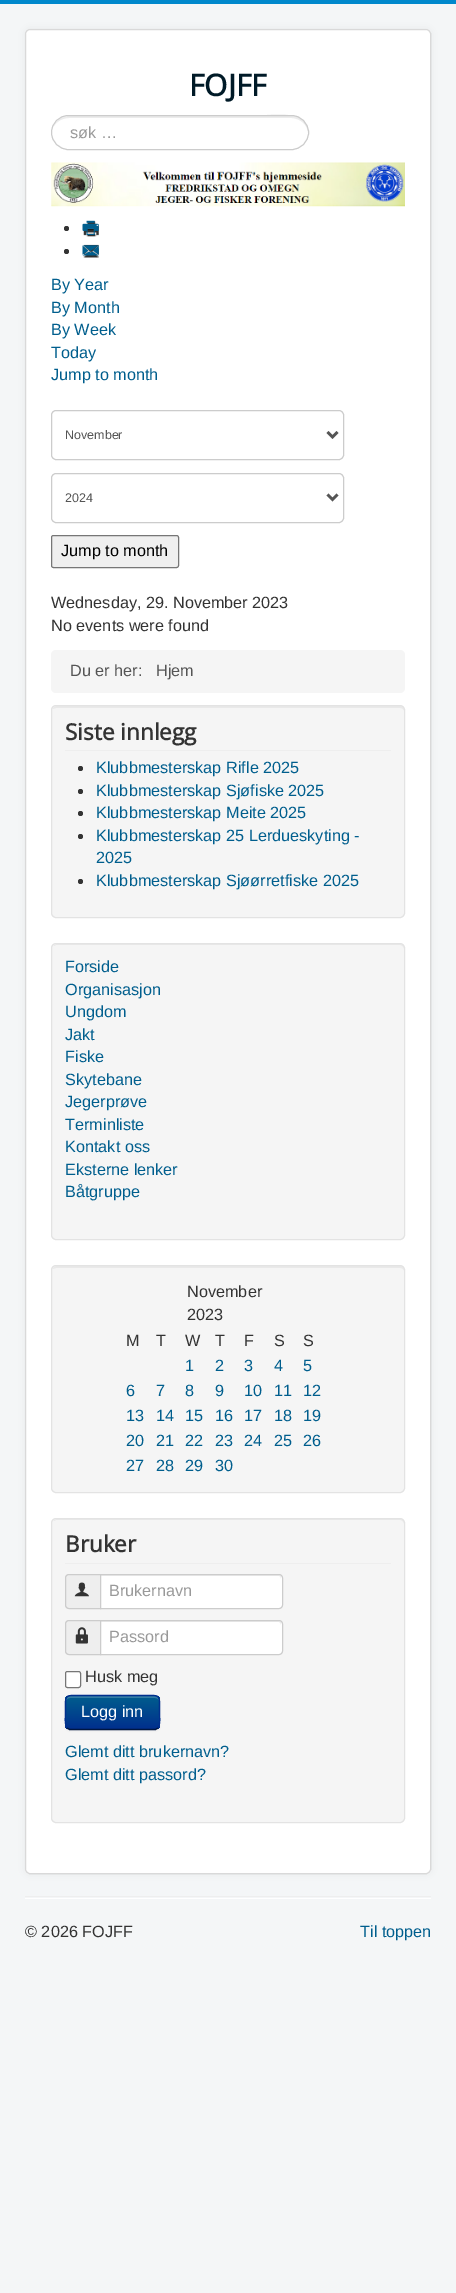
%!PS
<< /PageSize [456 2293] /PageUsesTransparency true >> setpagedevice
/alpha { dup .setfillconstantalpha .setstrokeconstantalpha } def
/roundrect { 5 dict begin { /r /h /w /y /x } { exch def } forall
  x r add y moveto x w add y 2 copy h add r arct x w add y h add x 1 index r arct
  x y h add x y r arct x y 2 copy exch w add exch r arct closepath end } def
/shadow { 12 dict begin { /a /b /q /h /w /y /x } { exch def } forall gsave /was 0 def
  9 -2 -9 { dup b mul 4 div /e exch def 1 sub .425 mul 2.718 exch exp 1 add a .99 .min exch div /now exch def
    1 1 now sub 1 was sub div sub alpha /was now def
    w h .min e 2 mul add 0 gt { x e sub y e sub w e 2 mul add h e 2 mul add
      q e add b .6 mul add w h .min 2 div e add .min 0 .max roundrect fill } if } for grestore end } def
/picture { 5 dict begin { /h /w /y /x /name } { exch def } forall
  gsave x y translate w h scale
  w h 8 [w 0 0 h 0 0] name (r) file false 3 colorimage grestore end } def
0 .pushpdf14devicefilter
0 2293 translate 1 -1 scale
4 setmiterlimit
0.957 0.965 0.969 setrgbcolor
0 0 456 2293 rectfill
0 0.533 0.8 setrgbcolor
0 0 456 4 rectfill
0 setgray
25 29 406 1845 5 4 0.05 shadow
1 setgray
25 29 406 1845 5 roundrect fill
0.15 alpha
0 setgray
25.5 29.5 405 1844 4.5 roundrect stroke
/OpenSans-Bold [30 0 0 -30 0 0] selectfont
1 alpha
0 0.102 0.153 setrgbcolor
189 96 moveto (FOJFF) show
0.925 setgray
newpath 69 118 moveto 291 118 lineto 300 118 308 125 308 133 curveto 309 107 265 116 254 116 curveto 70 116 lineto 63 116 57 120 54 126 curveto 57 121 63 118 69 118 curveto closepath fill
0.8 setgray
51.5 115.5 257 34 17 roundrect stroke
/LiberationSans-Regular [16.25 0 0 -16.25 0 0] selectfont
0.6 setgray
70 138 moveto (søk …) show
(img1.rgb) 51 162 354 45 picture
0.2 setgray
newpath 66.5 228.5 2.5 0 360 arc closepath fill
(img2.rgb) 83 221 16 16 picture
(img3.rgb) 82 220 17 15 picture
newpath 66.5 251.5 2.5 0 360 arc closepath fill
(img4.rgb) 83 244 16 14 picture
(img5.rgb) 82 245 17 11 picture
0 0.369 0.553 setrgbcolor
51 290 moveto (By Year) show
51 313 moveto (By Month) show
51 335 moveto (By Week) show
51 358 moveto (Today) show
51 380 moveto (Jump to month) show
0.8 setgray
51.5 410.5 292 49 4.5 roundrect stroke
0.333 setgray
2.5 setlinewidth
newpath 327.5 432 moveto 332.5 437 lineto 337.5 432 lineto stroke
/LiberationSans-Regular [12.5 0 0 -12.5 0 0] selectfont
65 439 moveto (November) show
0.8 setgray
1 setlinewidth
51.5 473.5 292 49 4.5 roundrect stroke
0.333 setgray
2.5 setlinewidth
newpath 327.5 494.5 moveto 332.5 499.5 lineto 337.5 494.5 lineto stroke
65 502 moveto (2024) show
0.937 setgray
51.5 535.5 127 32 2 roundrect gsave fill grestore
0.463 setgray
1 setlinewidth
stroke
/LiberationSans-Regular [16.25 0 0 -16.25 0 0] selectfont
0 setgray
61 556 moveto (Jump to month) show
0.2 setgray
51 608 moveto (Wednesday, 29. November 2023) show
51 631 moveto (No events were found) show
0.961 setgray
51 650 354 43 5 roundrect fill
0.333 setgray
70 676 moveto (Du er her:) show
156 676 moveto (Hjem) show
0.961 setgray
51 705 354 213 5 roundrect fill
0.914 setgray
newpath 56 708 moveto 400 708 lineto 402 708 404 709 404 711 curveto 404 710 lineto 404 708 402 706 400 706 curveto 57 706 lineto 55 706 54 707 53 709 curveto closepath fill
0.89 setgray
51.5 705.5 353 212 4.5 roundrect stroke
0.933 setgray
65 750 326 1 rectfill
/OpenSans-Bold [22.5 0 0 -22.5 0 0] selectfont
0.2 setgray
65 740 moveto (Siste innlegg) show
newpath 80.5 768.5 2.5 0 360 arc closepath fill
/LiberationSans-Regular [16.25 0 0 -16.25 0 0] selectfont
0 0.369 0.553 setrgbcolor
96 773 moveto (Klubbmesterskap Rifle 2025) show
0.2 setgray
newpath 80.5 791.5 2.5 0 360 arc closepath fill
0 0.369 0.553 setrgbcolor
96 796 moveto (Klubbmesterskap Sjøfiske 2025) show
0.2 setgray
newpath 80.5 813.5 2.5 0 360 arc closepath fill
0 0.369 0.553 setrgbcolor
96 818 moveto (Klubbmesterskap Meite 2025) show
0.2 setgray
newpath 80.5 836.5 2.5 0 360 arc closepath fill
0 0.369 0.553 setrgbcolor
96 841 moveto (Klubbmesterskap 25 Lerdueskyting -) show
96 863 moveto (2025) show
0.2 setgray
newpath 80.5 881.5 2.5 0 360 arc closepath fill
0 0.369 0.553 setrgbcolor
96 886 moveto (Klubbmesterskap Sjøørretfiske 2025) show
0.961 setgray
51 943 354 297 5 roundrect fill
0.914 setgray
newpath 56 945 moveto 400 945 lineto 402 945 404 947 404 949 curveto 404 948 lineto 404 946 402 944 400 944 curveto 57 944 lineto 56 944 54 945 54 946 curveto closepath fill
0.89 setgray
51.5 943.5 353 296 4.5 roundrect stroke
0 0.369 0.553 setrgbcolor
65 972 moveto (Forside) show
65 995 moveto (Organisasjon) show
65 1017 moveto (Ungdom) show
65 1040 moveto (Jakt) show
65 1062 moveto (Fiske) show
65 1085 moveto (Skytebane) show
65 1107 moveto (Jegerprøve) show
65 1130 moveto (Terminliste) show
65 1152 moveto (Kontakt oss) show
65 1175 moveto (Eksterne lenker) show
65 1197 moveto (Båtgruppe) show
0.961 setgray
51 1265 354 228 5 roundrect fill
0.914 setgray
newpath 56 1268 moveto 400 1268 lineto 402 1268 404 1269 404 1271 curveto 404 1270 lineto 404 1268 402 1266 400 1266 curveto 57 1266 lineto 55 1266 54 1267 53 1269 curveto closepath fill
0.89 setgray
51.5 1265.5 353 227 4.5 roundrect stroke
0.2 setgray
187 1297 moveto (November) show
187 1320 moveto (2023) show
126 1346 moveto (M) show
156 1346 moveto (T) show
185 1346 moveto (W) show
215 1346 moveto (T) show
244 1346 moveto (F) show
274 1346 moveto (S) show
303 1346 moveto (S) show
0 0.369 0.553 setrgbcolor
185 1371 moveto (1) show
215 1371 moveto (2) show
244 1371 moveto (3) show
274 1371 moveto (4) show
303 1371 moveto (5) show
126 1396 moveto (6) show
156 1396 moveto (7) show
185 1396 moveto (8) show
215 1396 moveto (9) show
244 1396 moveto (10) show
274 1396 moveto (11) show
303 1396 moveto (12) show
126 1421 moveto (13) show
156 1421 moveto (14) show
185 1421 moveto (15) show
215 1421 moveto (16) show
244 1421 moveto (17) show
274 1421 moveto (18) show
303 1421 moveto (19) show
126 1446 moveto (20) show
156 1446 moveto (21) show
185 1446 moveto (22) show
215 1446 moveto (23) show
244 1446 moveto (24) show
274 1446 moveto (25) show
303 1446 moveto (26) show
126 1471 moveto (27) show
156 1471 moveto (28) show
185 1471 moveto (29) show
215 1471 moveto (30) show
0.961 setgray
51 1518 354 305 5 roundrect fill
0.914 setgray
newpath 56 1520 moveto 400 1520 lineto 402 1520 404 1522 404 1524 curveto 404 1523 lineto 404 1521 402 1519 400 1519 curveto 57 1519 lineto 56 1519 54 1520 54 1521 curveto closepath fill
0.89 setgray
51.5 1518.5 353 304 4.5 roundrect stroke
0.933 setgray
65 1563 326 1 rectfill
/OpenSans-Bold [22.5 0 0 -22.5 0 0] selectfont
0.2 setgray
65 1552 moveto (Bruker) show
0.933 setgray
newpath 69 1574.5 moveto 100.5 1574.5 lineto 100.5 1608.5 lineto 69 1608.5 lineto 67 1608.5 65.5 1607 65.5 1605 curveto 65.5 1578 lineto 65.5 1576 67 1574.5 69 1574.5 curveto closepath gsave fill grestore
0.8 setgray
stroke
(img6.rgb) 74 1582 15 15 picture
1 setgray
newpath 100 1574 moveto 279 1574 lineto 281 1574 283 1576 283 1578 curveto 283 1605 lineto 283 1607 281 1609 279 1609 curveto 100 1609 lineto closepath fill
0.925 setgray
newpath 101 1576 moveto 279 1576 lineto 280 1576 281 1577 281 1579 curveto 281 1577 281 1575 279 1575 curveto 101 1575 lineto closepath fill
0.8 setgray
newpath 100.5 1574.5 moveto 279 1574.5 lineto 281 1574.5 282.5 1576 282.5 1578 curveto 282.5 1605 lineto 282.5 1607 281 1608.5 279 1608.5 curveto 100.5 1608.5 lineto closepath stroke
/LiberationSans-Regular [16.25 0 0 -16.25 0 0] selectfont
0.6 setgray
109 1596 moveto (Brukernavn) show
0.933 setgray
newpath 69 1620.5 moveto 100.5 1620.5 lineto 100.5 1654.5 lineto 69 1654.5 lineto 67 1654.5 65.5 1653 65.5 1651 curveto 65.5 1624 lineto 65.5 1622 67 1620.5 69 1620.5 curveto closepath gsave fill grestore
0.8 setgray
stroke
(img7.rgb) 75 1627 13 17 picture
1 setgray
newpath 100 1620 moveto 279 1620 lineto 281 1620 283 1622 283 1624 curveto 283 1651 lineto 283 1653 281 1655 279 1655 curveto 100 1655 lineto closepath fill
0.925 setgray
newpath 101 1622 moveto 279 1622 lineto 280 1622 281 1624 281 1625 curveto 281 1623 281 1621 279 1621 curveto 101 1621 lineto closepath fill
0.8 setgray
newpath 100.5 1620.5 moveto 279 1620.5 lineto 281 1620.5 282.5 1622 282.5 1624 curveto 282.5 1651 lineto 282.5 1653 281 1654.5 279 1654.5 curveto 100.5 1654.5 lineto closepath stroke
0.6 setgray
109 1642 moveto (Passord) show
1 setgray
65.5 1671.5 15 16 2 roundrect gsave fill grestore
0.463 setgray
stroke
0.2 setgray
85 1682 moveto (Husk meg) show
0 setgray
65 1696 95 35 5 1 0.05 shadow
gsave
65 1695 95 35 5 roundrect clip newpath
gsave newpath 65 1696 moveto 160 1696 lineto 160 1729 lineto 65 1729 lineto closepath clip newpath
<< /ShadingType 2 /ColorSpace /DeviceRGB /Coords [113 1696 113 1729] /Extend [true true] /Function << /FunctionType 2 /Domain [0 1] /C0 [0 0.369 0.553] /C1 [0 0.184 0.553] /N 1 >> >> shfill grestore
grestore
0.2 alpha
1 setgray
newpath 70 1698 moveto 155 1698 lineto 157 1698 159 1699 159 1701 curveto 159 1692 145 1696 141 1696 curveto 84 1696 lineto 80 1696 66 1692 66 1701 curveto 66 1699 68 1698 70 1698 curveto closepath fill
1 alpha
0 0.086 0.255 setrgbcolor
1.2 setlinewidth
newpath 158 1728 moveto 155.5 1729.5 lineto 69.5 1729.5 lineto 67 1728 lineto stroke
0 0.184 0.553 setrgbcolor
newpath 67 1728 moveto 64.5 1725.5 65.5 1715.5 65.5 1712.5 curveto 65.5 1693 63.5 1695.5 84 1695.5 curveto 141 1695.5 lineto 161.5 1695.5 159.5 1693 159.5 1712.5 curveto 159.5 1715.5 160.5 1725.5 158 1728 curveto stroke
1 setgray
81 1717 moveto (Logg inn) show
0 0.369 0.553 setrgbcolor
65 1757 moveto (Glemt ditt brukernavn?) show
65 1780 moveto (Glemt ditt passord?) show
0.933 setgray
25 1896 406 1 rectfill
1 setgray
25 1898 406 1 rectfill
0.2 setgray
25 1937 moveto (© 2026 FOJFF) show
0 0.369 0.553 setrgbcolor
360 1937 moveto (Til toppen) show
.poppdf14devicefilter showpage
